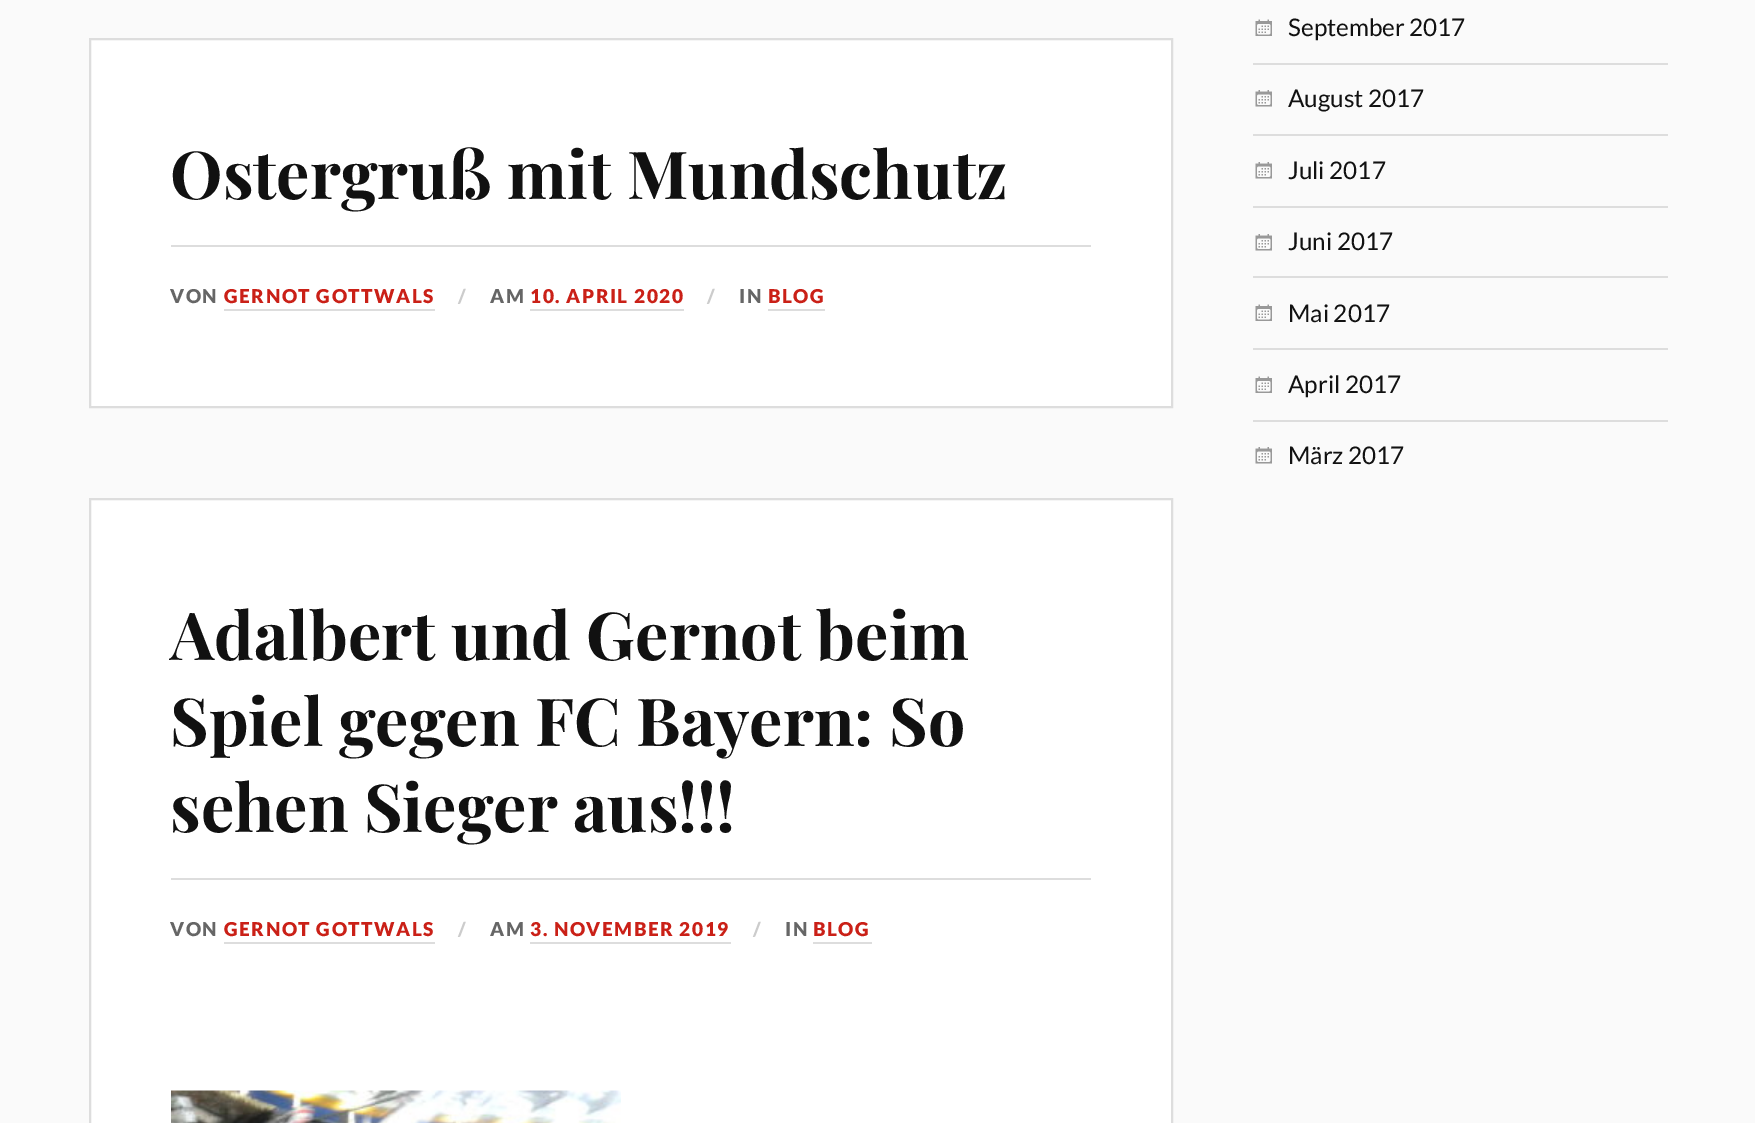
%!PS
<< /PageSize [1755 1123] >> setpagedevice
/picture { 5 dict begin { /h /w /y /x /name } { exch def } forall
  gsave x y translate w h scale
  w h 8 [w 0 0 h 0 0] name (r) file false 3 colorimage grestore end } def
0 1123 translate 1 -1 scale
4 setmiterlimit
0.98 setgray
0 0 1755 1123 rectfill
1 setgray
newpath 90 39 moveto 1172 39 lineto 1172 407 lineto 90 407 lineto closepath gsave fill grestore
0.867 setgray
2 setlinewidth
stroke
/PlayfairDisplay-Bold [66.25 0 0 -66.25 0 0] selectfont
0.067 setgray
170 199 moveto (Ostergruß mit Mundschutz) show
0.867 setgray
171 245 920 2 rectfill
/Lato-Black [19.1 0 0 -19.1 0 0] selectfont
0.4 setgray
170 303 moveto 1.5 0 (VON) ashow
0.792 0.125 0.09 setrgbcolor
224 303 moveto 1.5 0 (GERNOT GOTTWALS) ashow
0.867 setgray
224 309 211 2 rectfill
0.8 setgray
458 303 moveto 1.5 0 (/) ashow
0.4 setgray
490 303 moveto 1.5 0 (AM) ashow
0.792 0.125 0.09 setrgbcolor
530 303 moveto 1.5 0 (10. APRIL 2020) ashow
0.867 setgray
530 309 154 2 rectfill
0.8 setgray
707 303 moveto 1.5 0 (/) ashow
0.4 setgray
739 303 moveto 1.5 0 (IN) ashow
0.792 0.125 0.09 setrgbcolor
768 303 moveto 1.5 0 (BLOG) ashow
0.867 setgray
768 309 57 2 rectfill
1 setgray
newpath 90 499 moveto 1172 499 lineto 1172 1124 lineto 90 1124 lineto closepath gsave fill grestore
0.867 setgray
stroke
/PlayfairDisplay-Bold [66.25 0 0 -66.25 0 0] selectfont
0.067 setgray
170 660 moveto (Adalbert und Gernot beim) show
170 746 moveto (Spiel gegen FC Bayern: So) show
170 832 moveto (sehen Sieger aus!!!) show
0.867 setgray
171 878 920 2 rectfill
/Lato-Black [19.1 0 0 -19.1 0 0] selectfont
0.4 setgray
170 936 moveto 1.5 0 (VON) ashow
0.792 0.125 0.09 setrgbcolor
224 936 moveto 1.5 0 (GERNOT GOTTWALS) ashow
0.867 setgray
224 942 211 2 rectfill
0.8 setgray
458 936 moveto 1.5 0 (/) ashow
0.4 setgray
490 936 moveto 1.5 0 (AM) ashow
0.792 0.125 0.09 setrgbcolor
530 936 moveto 1.5 0 (3. NOVEMBER 2019) ashow
0.867 setgray
530 942 201 2 rectfill
0.8 setgray
753 936 moveto 1.5 0 (/) ashow
0.4 setgray
785 936 moveto 1.5 0 (IN) ashow
0.792 0.125 0.09 setrgbcolor
813 936 moveto 1.5 0 (BLOG) ashow
0.867 setgray
813 942 59 2 rectfill
(img1.rgb) 171 1090 450 33 picture
1253 63 415 2 rectfill
(img2.rgb) 1255 19 17 17 picture
/Lato-Regular [24.25 0 0 -24.25 0 0] selectfont
0.067 setgray
1288 36 moveto (September 2017) show
0.867 setgray
1253 134 415 2 rectfill
(img3.rgb) 1255 90 17 17 picture
0.067 setgray
1288 107 moveto (August 2017) show
0.867 setgray
1253 206 415 2 rectfill
(img3.rgb) 1255 162 17 17 picture
0.067 setgray
1288 179 moveto (Juli 2017) show
0.867 setgray
1253 276 415 2 rectfill
(img3.rgb) 1255 234 17 17 picture
0.067 setgray
1288 250 moveto (Juni 2017) show
0.867 setgray
1253 348 415 2 rectfill
(img2.rgb) 1255 304 17 17 picture
0.067 setgray
1288 322 moveto (Mai 2017) show
0.867 setgray
1253 420 415 2 rectfill
(img2.rgb) 1255 376 17 17 picture
0.067 setgray
1288 393 moveto (April 2017) show
(img3.rgb) 1255 447 17 17 picture
1288 464 moveto (März 2017) show
showpage
